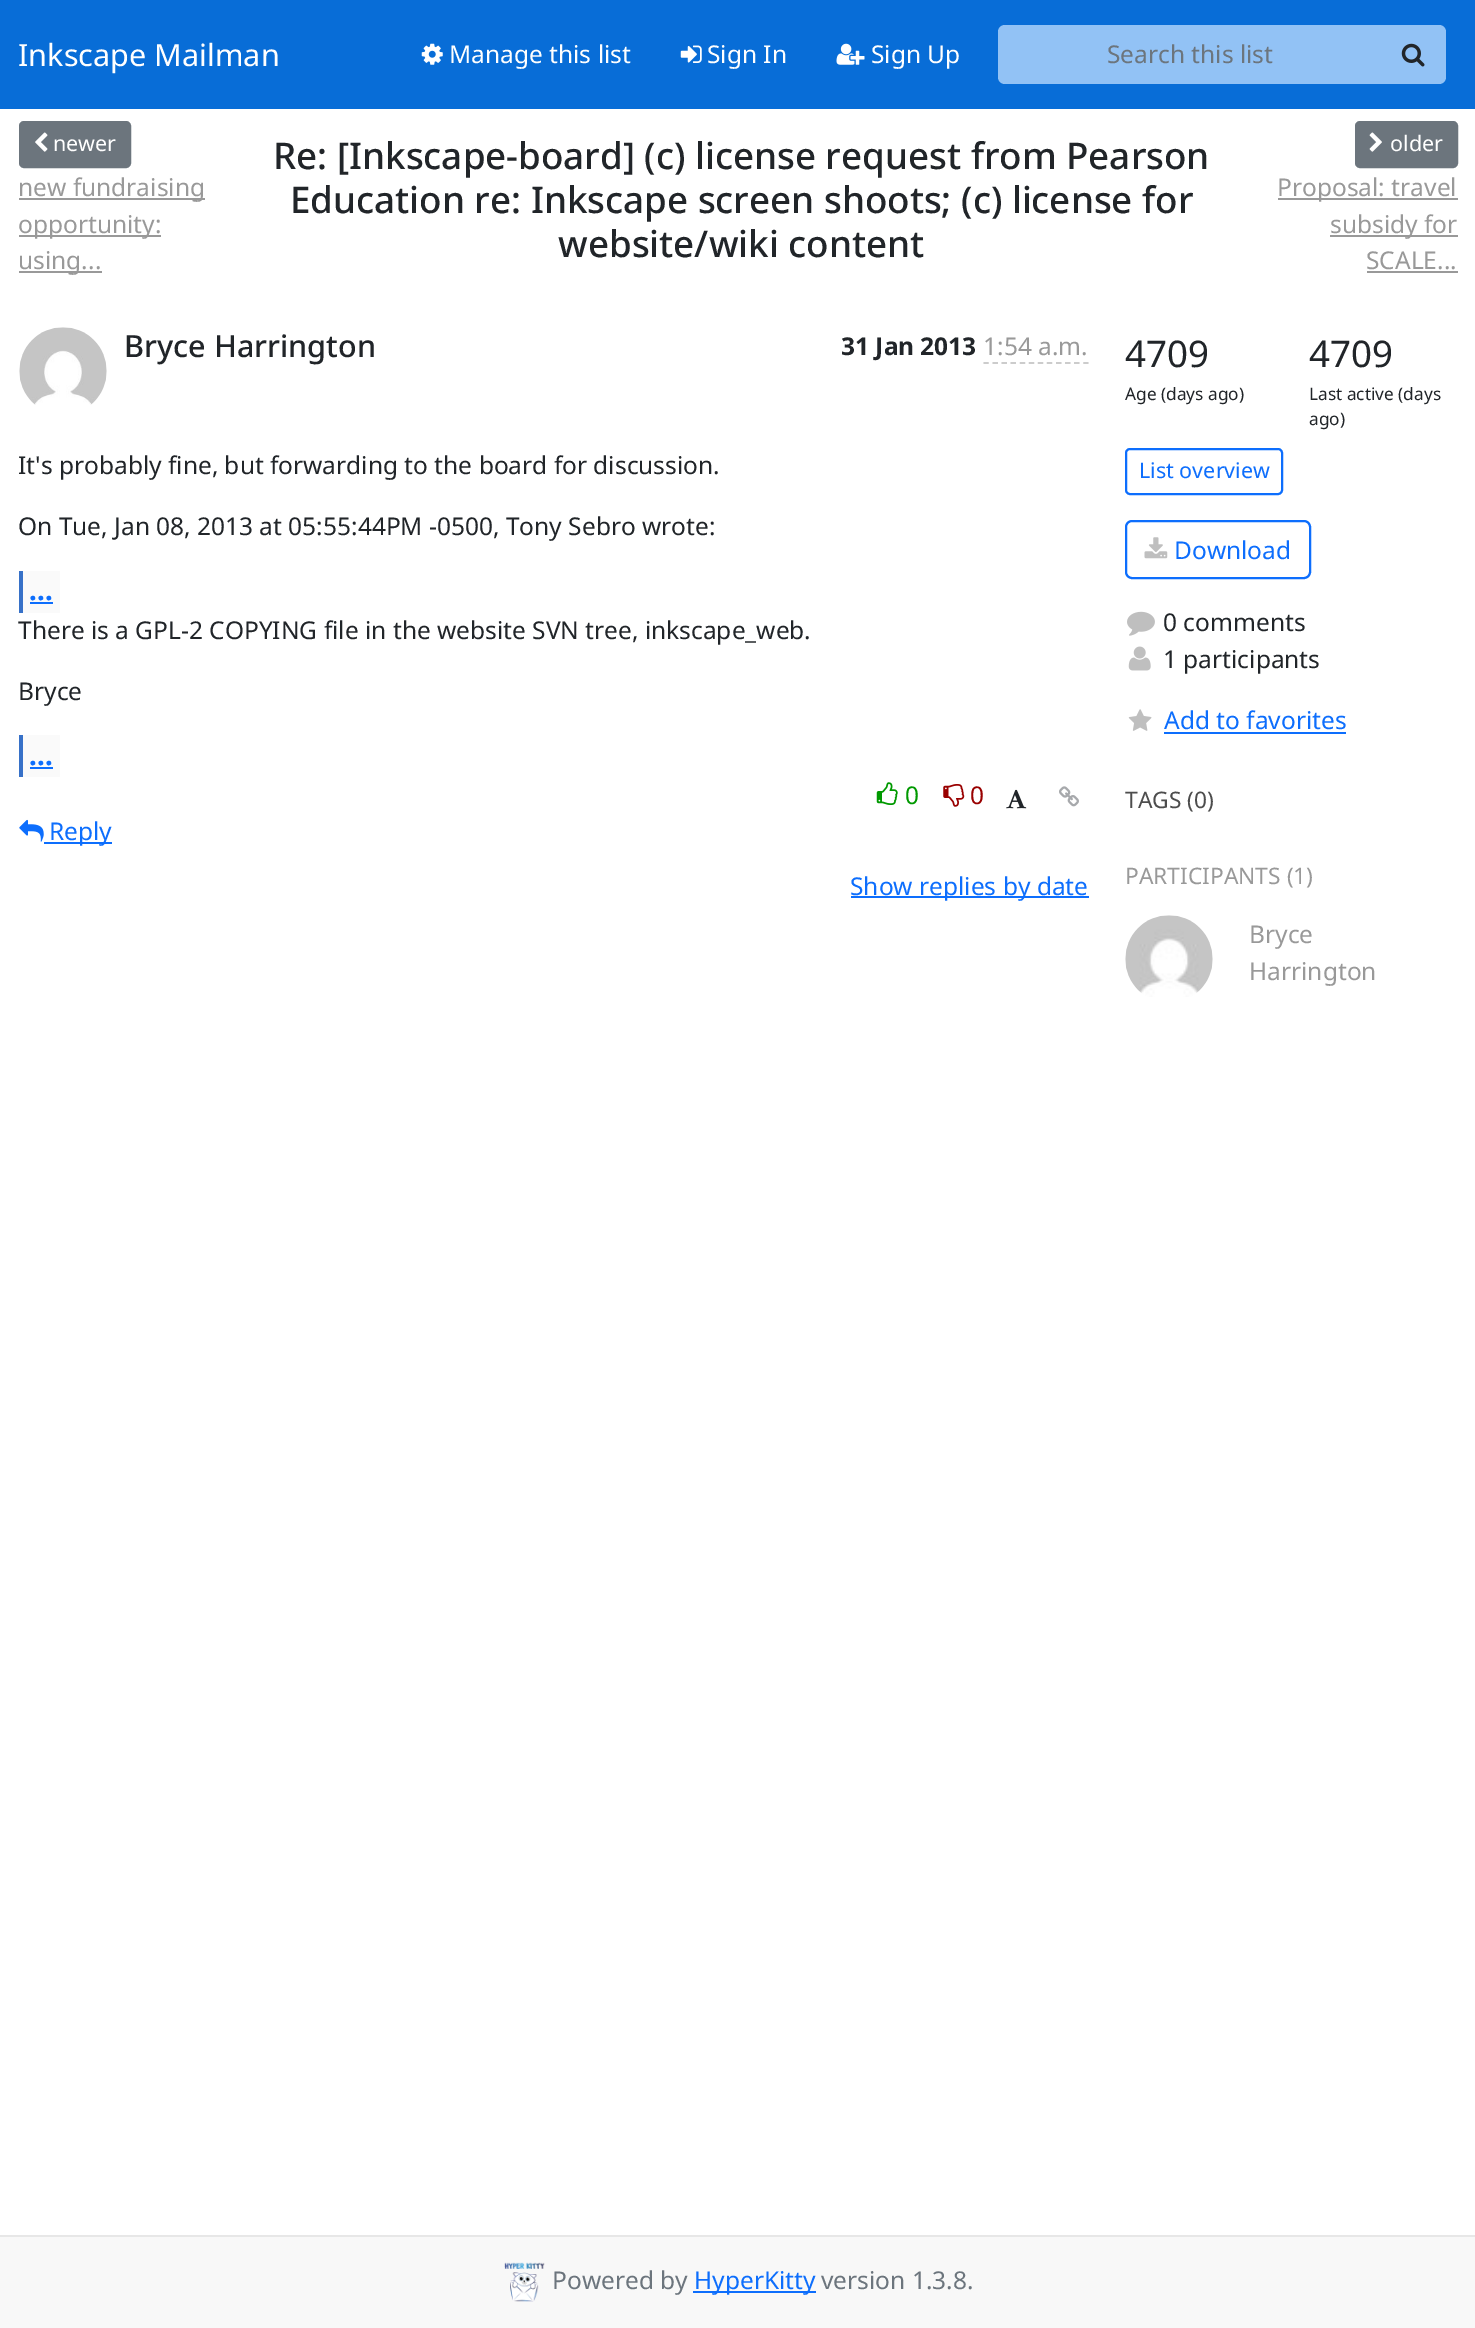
%!PS
<< /PageSize [1475 2328] >> setpagedevice
/roundrect { 5 dict begin { /r /h /w /y /x } { exch def } forall
  x r add y moveto x w add y 2 copy h add r arct x w add y h add x 1 index r arct
  x y h add x y r arct x y 2 copy exch w add exch r arct closepath end } def
/picture { 5 dict begin { /h /w /y /x /name } { exch def } forall
  gsave x y translate w h scale
  w h 8 [w 0 0 h 0 0] name (r) file false 3 colorimage grestore end } def
0 2328 translate 1 -1 scale
4 setmiterlimit
1 setgray
0 0 1475 2328 rectfill
0.031 0.427 0.843 setrgbcolor
0 0 1475 109 rectfill
/NotoSans-Regular [30.6 0 0 -30.6 0 0] selectfont
1 setgray
18 66 moveto (Inkscape Mailman) show
(img1.rgb) 421 43 22 22 picture
/NotoSans-Regular [24.5 0 0 -24.5 0 0] selectfont
449 63 moveto (Manage this list) show
(img2.rgb) 680 45 22 18 picture
707 63 moveto (Sign In) show
(img3.rgb) 836 43 29 22 picture
871 63 moveto (Sign Up) show
0.573 0.761 0.961 setrgbcolor
newpath 1005 25 moveto 1384 25 lineto 1384 84 lineto 1005 84 lineto 1001 84 998 81 998 77 curveto 998 32 lineto 998 28 1001 25 1005 25 curveto closepath fill
0.424 0.459 0.49 setrgbcolor
1107 63 moveto (Search this list) show
0.573 0.761 0.961 setrgbcolor
newpath 1383 25 moveto 1439 25 lineto 1443 25 1446 28 1446 32 curveto 1446 77 lineto 1446 81 1443 84 1439 84 curveto 1383 84 lineto closepath fill
(img4.rgb) 1401 43 24 24 picture
0.424 0.459 0.49 setrgbcolor
20 122 110 45 4 roundrect gsave fill grestore
2 setlinewidth
stroke
(img5.rgb) 35 132 13 20 picture
/NotoSans-Regular [21.5 0 0 -21.5 0 0] selectfont
1 setgray
53 151 moveto (newer) show
0.6 setgray
19 198 186 2 rectfill
/NotoSans-Regular [24.5 0 0 -24.5 0 0] selectfont
18 196 moveto (new fundraising) show
19 235 142 2 rectfill
18 233 moveto (opportunity:) show
19 271 83 2 rectfill
18 269 moveto (using...) show
/NotoSans-Medium [36.75 0 0 -36.75 0 0] selectfont
0.129 0.145 0.161 setrgbcolor
273 169 moveto (Re: [Inkscape-board] \(c\) license request from Pearson) show
290 213 moveto (Education re: Inkscape screen shoots; \(c\) license for) show
558 257 moveto (website/wiki content) show
0.424 0.459 0.49 setrgbcolor
1356 122 101 45 4 roundrect gsave fill grestore
stroke
(img6.rgb) 1369 132 13 20 picture
/NotoSans-Regular [21.5 0 0 -21.5 0 0] selectfont
1 setgray
1390 151 moveto (older) show
0.6 setgray
1278 198 180 2 rectfill
/NotoSans-Regular [24.5 0 0 -24.5 0 0] selectfont
1277 196 moveto (Proposal: travel) show
1330 235 128 2 rectfill
1330 233 moveto (subsidy for) show
1366 269 moveto (SCALE...) show
1367 271 91 2 rectfill
(img7.rgb) 19 327 88 78 picture
/NotoSans-Medium [30.6 0 0 -30.6 0 0] selectfont
0.129 0.145 0.161 setrgbcolor
124 357 moveto (Bryce Harrington) show
/NotoSans-Bold [24.5 0 0 -24.5 0 0] selectfont
841 355 moveto (31 Jan 2013) show
/NotoSans-Regular [24.5 0 0 -24.5 0 0] selectfont
0.6 setgray
983 355 moveto (1:54 a.m.) show
0.8 setgray
1.8 setlinewidth
[5.25 3.82] 0 setdash
newpath 983.5 363 moveto 1088.5 363 lineto stroke
0.129 0.145 0.161 setrgbcolor
18 474 moveto (It's probably fine, but forwarding to the board for discussion.) show
18 535 moveto (On Tue, Jan 08, 2013 at 05:55:44PM -0500, Tony Sebro wrote:) show
0.98 setgray
23 571 37 42 rectfill
/NotoSans-Bold [28 0 0 -28 0 0] selectfont
0.051 0.431 0.992 setrgbcolor
29 600 moveto (...) show
0.216 0.443 0.784 setrgbcolor
19 571 4 42 rectfill
0.051 0.431 0.992 setrgbcolor
30 602 23 2 rectfill
/NotoSans-Regular [24.5 0 0 -24.5 0 0] selectfont
0.129 0.145 0.161 setrgbcolor
18 639 moveto (There is a GPL-2 COPYING file in the website SVN tree, inkscape_web.) show
18 700 moveto (Bryce) show
0.98 setgray
23 735 37 42 rectfill
/NotoSans-Bold [28 0 0 -28 0 0] selectfont
0.051 0.431 0.992 setrgbcolor
29 765 moveto (...) show
0.216 0.443 0.784 setrgbcolor
19 735 4 42 rectfill
0.051 0.431 0.992 setrgbcolor
30 767 23 2 rectfill
(img8.rgb) 876 782 22 23 picture
/NotoSans-Regular [24.5 0 0 -24.5 0 0] selectfont
0 0.6 0 setrgbcolor
905 804 moveto (0) show
(img9.rgb) 943 784 22 23 picture
0.6 0 0 setrgbcolor
970 804 moveto (0) show
(img10.rgb) 1006 789 21 20 picture
(img11.rgb) 1059 786 20 21 picture
(img12.rgb) 19 819 25 23 picture
0.051 0.431 0.992 setrgbcolor
44 842 68 2 rectfill
49 840 moveto (Reply) show
851 896 238 2 rectfill
850 895 moveto (Show replies by date) show
/NotoSans-Regular [36.75 0 0 -36.75 0 0] selectfont
0.129 0.145 0.161 setrgbcolor
1125 367 moveto (4709) show
/NotoSans-Regular [17.25 0 0 -17.25 0 0] selectfont
1125 400 moveto (Age \(days ago\)) show
/NotoSans-Regular [36.75 0 0 -36.75 0 0] selectfont
1309 367 moveto (4709) show
/NotoSans-Regular [17.25 0 0 -17.25 0 0] selectfont
1309 400 moveto (Last active \(days) show
1309 425 moveto (ago\)) show
0.051 0.431 0.992 setrgbcolor
2 setlinewidth
[] 0 setdash
1126 449 156 45 4 roundrect stroke
/NotoSans-Regular [21.5 0 0 -21.5 0 0] selectfont
1139 478 moveto (List overview) show
1126 521 184 57 6 roundrect stroke
(img13.rgb) 1144 537 24 22 picture
/NotoSans-Regular [24.5 0 0 -24.5 0 0] selectfont
1174 559 moveto (Download) show
(img14.rgb) 1127 611 28 25 picture
0.129 0.145 0.161 setrgbcolor
1163 631 moveto (0 comments) show
(img15.rgb) 1128 646 23 25 picture
1163 668 moveto (1 participants) show
(img16.rgb) 1128 709 24 22 picture
0.051 0.431 0.992 setrgbcolor
1164 729 moveto (Add to favorites) show
1164 732 182 2 rectfill
/NotoSans-Regular [22.75 0 0 -22.75 0 0] selectfont
0.302 setgray
1125 808 moveto (TAGS \(0\)) show
0.6 setgray
1125 884 moveto (PARTICIPANTS \(1\)) show
(img17.rgb) 1125 915 88 82 picture
/NotoSans-Regular [24.5 0 0 -24.5 0 0] selectfont
1249 943 moveto (Bryce) show
1249 980 moveto (Harrington) show
0.973 setgray
0 2237 1475 91 rectfill
0.906 setgray
0 2235 1475 2 rectfill
(img18.rgb) 504 2262 41 40 picture
0.424 0.459 0.49 setrgbcolor
552 2289 moveto (Powered by) show
0.051 0.431 0.992 setrgbcolor
693 2291 123 2 rectfill
694 2289 moveto (HyperKitty) show
0.424 0.459 0.49 setrgbcolor
821 2289 moveto (version 1.3.8.) show
showpage
